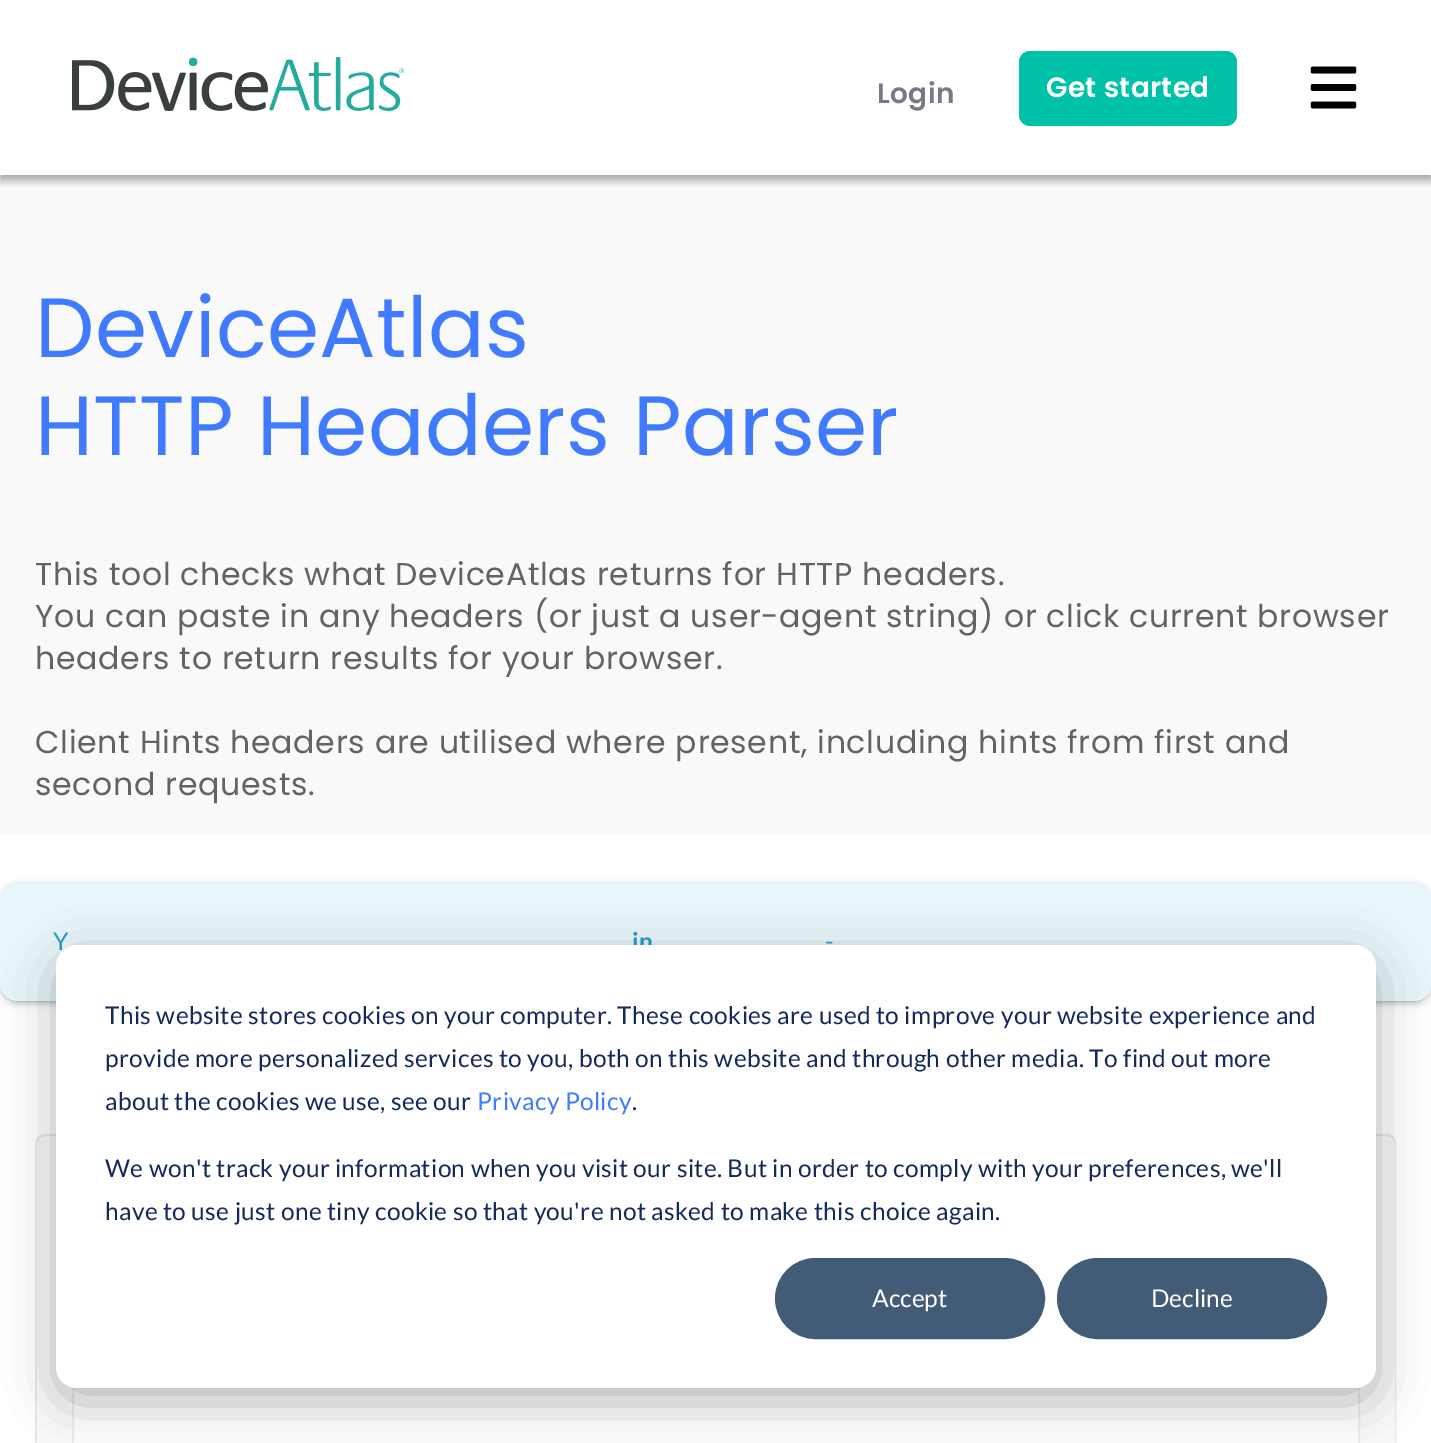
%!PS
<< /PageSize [1431 1443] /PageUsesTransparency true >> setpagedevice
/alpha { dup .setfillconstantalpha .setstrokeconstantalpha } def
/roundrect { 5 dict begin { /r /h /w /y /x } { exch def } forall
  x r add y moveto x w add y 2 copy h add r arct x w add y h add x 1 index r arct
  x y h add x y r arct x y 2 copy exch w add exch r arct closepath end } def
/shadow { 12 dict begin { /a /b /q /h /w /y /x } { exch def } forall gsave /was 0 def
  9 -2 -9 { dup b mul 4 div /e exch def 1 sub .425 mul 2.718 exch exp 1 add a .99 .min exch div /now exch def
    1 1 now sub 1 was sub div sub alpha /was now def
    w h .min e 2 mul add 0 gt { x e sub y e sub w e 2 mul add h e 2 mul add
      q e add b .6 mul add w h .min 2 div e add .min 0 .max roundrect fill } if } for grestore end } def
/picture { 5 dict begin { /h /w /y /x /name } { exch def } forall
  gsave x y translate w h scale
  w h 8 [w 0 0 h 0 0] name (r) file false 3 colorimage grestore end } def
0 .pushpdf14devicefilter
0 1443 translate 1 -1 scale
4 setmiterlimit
1 setgray
0 0 1431 1443 rectfill
0.976 setgray
0 175 1431 658 rectfill
gsave
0 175 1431 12 rectclip
0 setgray
0 5 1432 175 0 5 0.23 shadow
grestore
gsave
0 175 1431 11 rectclip
0 setgray
0 5 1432 175 0 5 0.16 shadow
grestore
(img1.rgb) 72 57 332 54 picture
/Poppins-SemiBold [28 0 0 -28 0 0] selectfont
0.471 0.471 0.529 setrgbcolor
877 103 moveto 0.35 0 (Login) ashow
0 0.761 0.663 setrgbcolor
1019 51 218 75 11 roundrect fill
1 setgray
1046 97 moveto 0.35 0 (Get started) ashow
(img2.rgb) 1310 66 47 43 picture
/Poppins-Regular [84 0 0 -84 0 0] selectfont
0.251 0.482 1 setrgbcolor
35 357 moveto 0.35 0 (DeviceAtlas) ashow
35 455 moveto 0.35 0 (HTTP Headers Parser) ashow
/Poppins-Regular [31.5 0 0 -31.5 0 0] selectfont
0.38 0.392 0.392 setrgbcolor
35 585 moveto 0.75 0 (This tool checks what DeviceAtlas returns for HTTP headers.) ashow
35 627 moveto 0.75 0 (You can paste in any headers \(or just a user-agent string\) or click current browser) ashow
35 669 moveto 0.75 0 (headers to return results for your browser.) ashow
35 753 moveto 0.75 0 (Client Hints headers are utilised where present, including hints from first and) ashow
35 795 moveto 0.75 0 (second requests.) ashow
0 setgray
2 886 1428 115 16 2.5 0.3 shadow
0.196 0.196 0.365 setrgbcolor
2 887 1428 116 16 4.5 0.25 shadow
0.914 0.965 0.976 setrgbcolor
0 882 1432 119 18 roundrect fill
/Lato-Regular [24.5 0 0 -24.5 0 0] selectfont
0.133 0.627 0.78 setrgbcolor
53 950 moveto 0.35 0 (Y) ashow
/Lato-Bold [24.5 0 0 -24.5 0 0] selectfont
632 950 moveto 0.35 0 (in) ashow
/Lato-Regular [24.5 0 0 -24.5 0 0] selectfont
825 950 moveto 0.35 0 (-) ashow
0.976 setgray
newpath 46 1134 moveto 1386 1134 lineto 1392 1134 1397 1139 1397 1145 curveto 1397 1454 lineto 35 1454 lineto 35 1145 lineto 35 1139 40 1134 46 1134 curveto closepath fill
0.906 setgray
newpath 46 1134 moveto 1386 1134 lineto 1392 1134 1396 1139 1396 1144 curveto 1396 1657 lineto 35 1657 lineto 35 1144 lineto 35 1139 40 1134 46 1134 curveto closepath 46 1136 moveto 1386 1136 lineto 1391 1136 1395 1140 1395 1144 curveto 1395 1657 lineto 37 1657 lineto 37 1144 lineto 37 1140 41 1136 46 1136 curveto closepath eofill
1 setgray
74 1387 1284 56 rectfill
0.929 setgray
2 setlinewidth
73 1221 1286 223 rectstroke
0 setgray
56 959 1320 443 21 24.5 0.28 shadow
1 setgray
56 945 1320 443 21 roundrect fill
0.082 0.161 0.353 setrgbcolor
105 1024 moveto 0.35 0 (This website stores cookies on your computer. These cookies are used to improve your website experience and) ashow
105 1067 moveto 0.35 0 (provide more personalized services to you, both on this website and through other media. To find out more) ashow
105 1110 moveto 0.35 0 (about the cookies we use, see our) ashow
0.251 0.482 1 setrgbcolor
477 1110 moveto 0.35 0 (Privacy Policy) ashow
0.082 0.161 0.353 setrgbcolor
632 1110 moveto 0.35 0 (.) ashow
105 1177 moveto 0.35 0 (We won't track your information when you visit our site. But in order to comply with your preferences, we'll) ashow
105 1220 moveto 0.35 0 (have to use just one tiny cookie so that you're not asked to make this choice again.) ashow
0.259 0.357 0.463 setrgbcolor
776 1259 268 79 39.5 roundrect gsave fill grestore
stroke
1 setgray
872 1307 moveto (Accept) show
0.259 0.357 0.463 setrgbcolor
1058 1259 268 79 39.5 roundrect gsave fill grestore
stroke
1 setgray
1151 1307 moveto (Decline) show
.poppdf14devicefilter showpage
